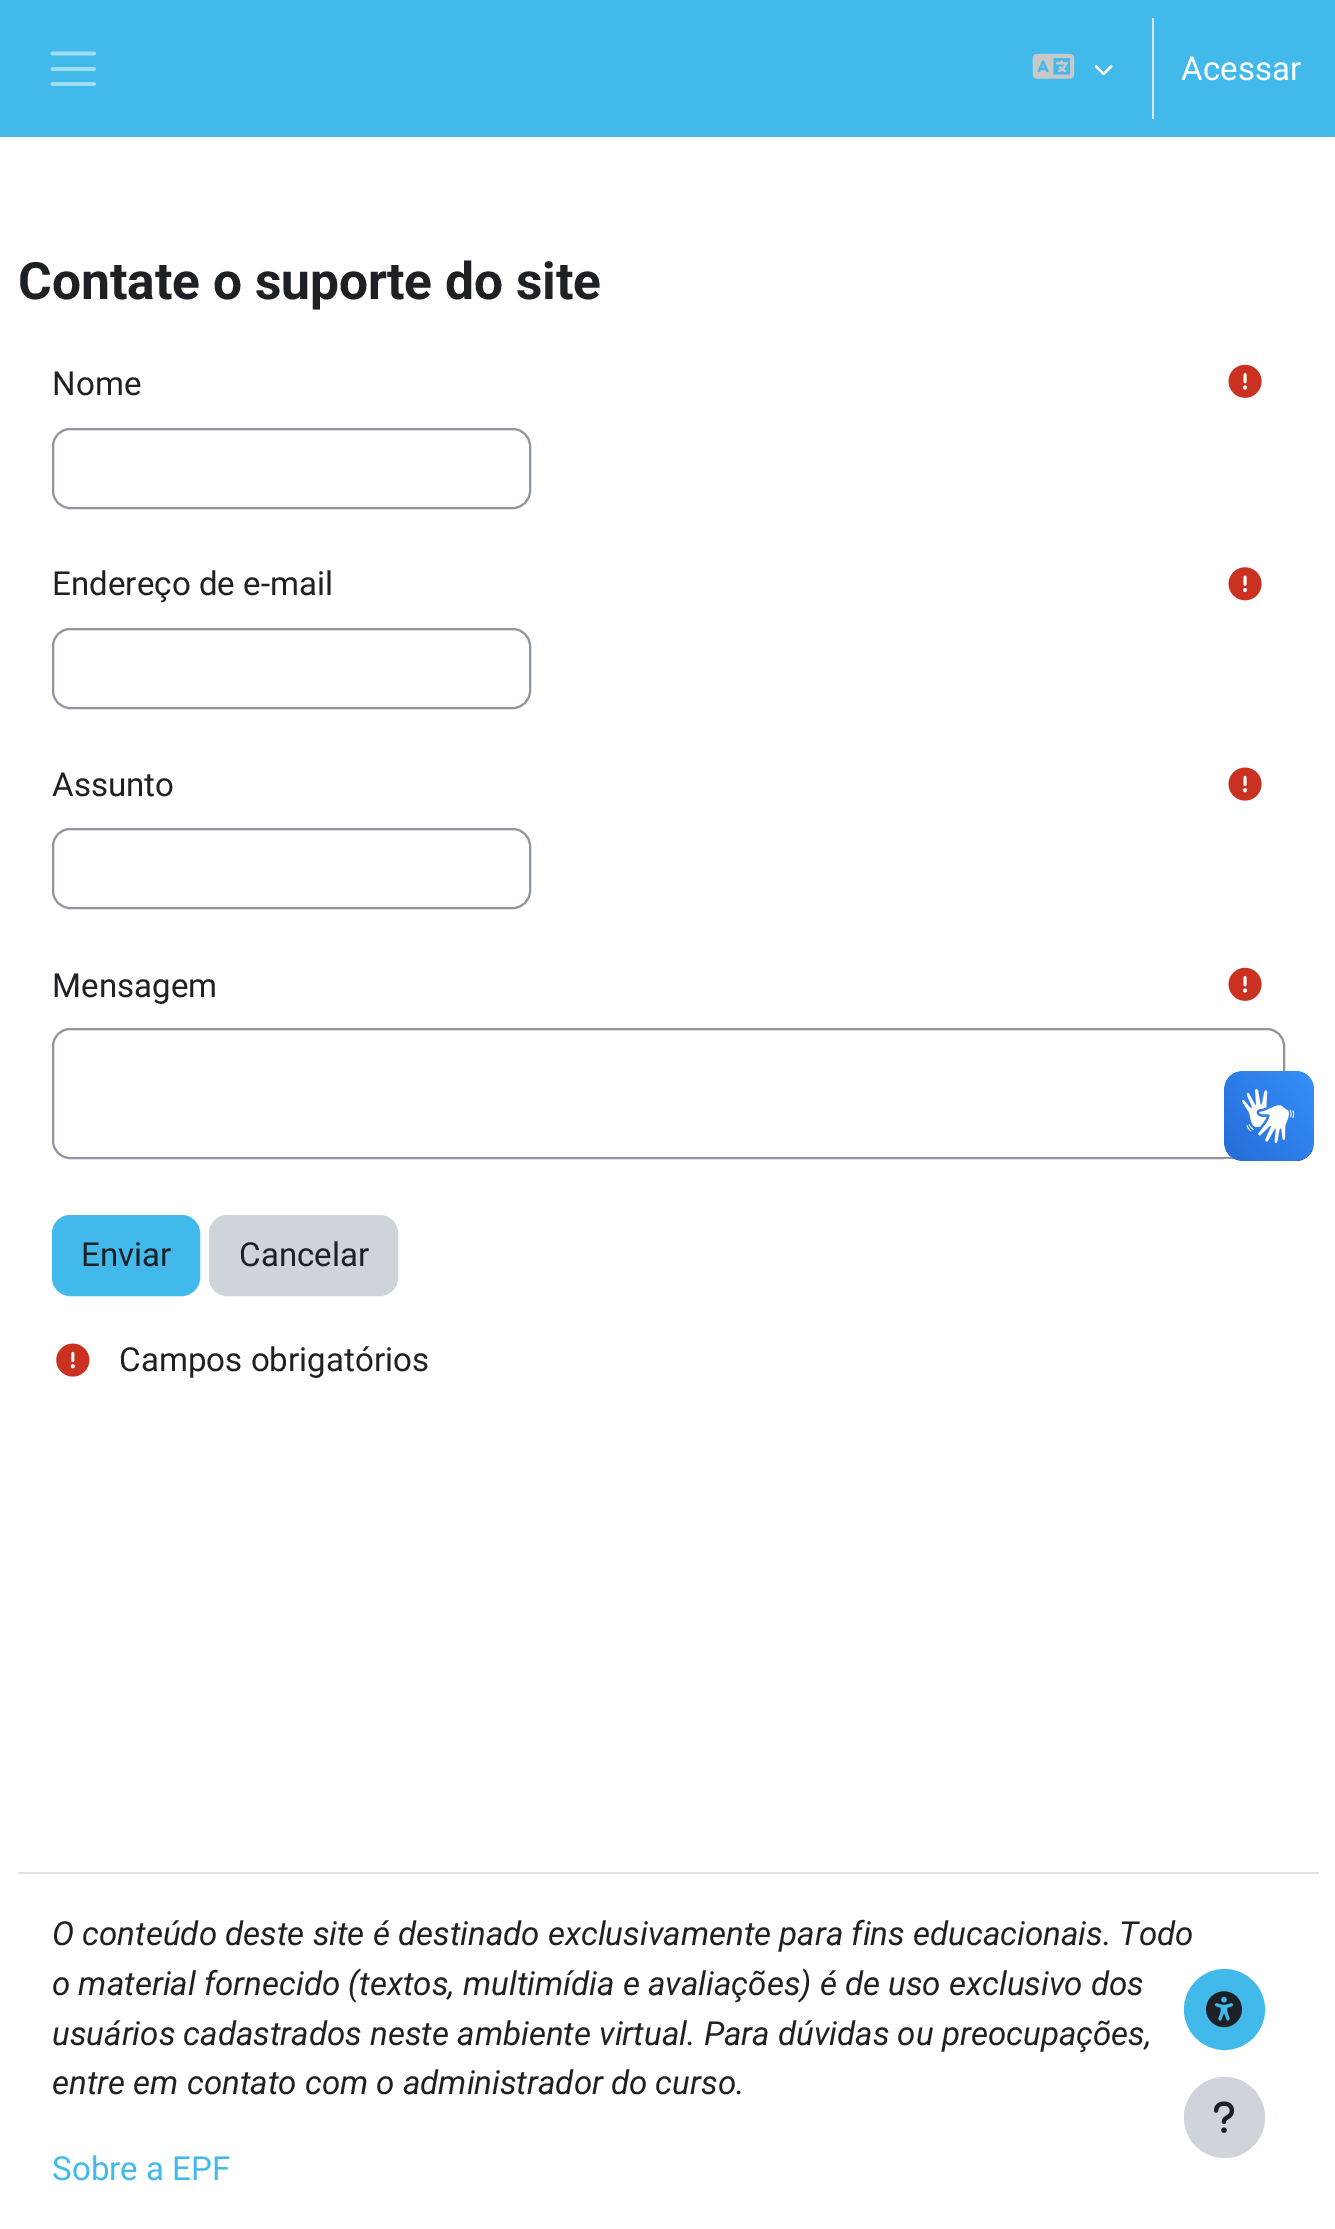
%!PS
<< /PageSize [1335 2229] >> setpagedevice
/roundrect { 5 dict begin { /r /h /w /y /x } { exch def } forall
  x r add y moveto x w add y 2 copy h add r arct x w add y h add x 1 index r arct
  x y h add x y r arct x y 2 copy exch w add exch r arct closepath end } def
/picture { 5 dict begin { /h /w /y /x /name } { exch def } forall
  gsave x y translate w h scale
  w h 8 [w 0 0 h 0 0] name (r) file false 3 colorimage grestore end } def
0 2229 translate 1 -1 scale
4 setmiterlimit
1 setgray
0 0 1335 2229 rectfill
0.259 0.725 0.922 setrgbcolor
0 0 1335 137 rectfill
0.631 0.863 0.961 setrgbcolor
3.8 setlinewidth
1 setlinecap
newpath 52.5 53.5 moveto 94 53.5 lineto 52.5 69 moveto 94 69 lineto 52.5 84 moveto 94 84 lineto stroke
(img1.rgb) 1032 53 43 26 picture
(img2.rgb) 1094 65 19 11 picture
0.871 0.886 0.902 setrgbcolor
1152 18 2 101 rectfill
/Roboto-Regular [33.15 0 0 -33.15 0 0] selectfont
1 setgray
1181 80 moveto (Acessar) show
/Roboto-Bold [51.5 0 0 -51.5 0 0] selectfont
0.114 0.129 0.145 setrgbcolor
18 299 moveto (Contate o suporte do site) show
/Roboto-Regular [33.15 0 0 -33.15 0 0] selectfont
52 395 moveto (Nome) show
(img3.rgb) 1228 364 34 34 picture
0.561 0.584 0.62 setrgbcolor
2 setlinewidth
0 setlinecap
53 429 477 79 17 roundrect stroke
0.114 0.129 0.145 setrgbcolor
52 595 moveto (Endereço de e-mail) show
(img4.rgb) 1228 567 34 34 picture
0.561 0.584 0.62 setrgbcolor
53 629 477 79 17 roundrect stroke
0.114 0.129 0.145 setrgbcolor
52 796 moveto (Assunto) show
(img5.rgb) 1228 767 34 34 picture
0.561 0.584 0.62 setrgbcolor
53 829 477 79 17 roundrect stroke
0.114 0.129 0.145 setrgbcolor
52 997 moveto (Mensagem) show
(img3.rgb) 1228 967 34 34 picture
0.561 0.584 0.62 setrgbcolor
53 1029 1231 129 17 roundrect stroke
0.259 0.725 0.922 setrgbcolor
53 1216 146 79 17 roundrect gsave fill grestore
stroke
0.114 0.129 0.145 setrgbcolor
81 1266 moveto (Enviar) show
0.808 0.831 0.855 setrgbcolor
210 1216 187 79 17 roundrect gsave fill grestore
stroke
0.114 0.129 0.145 setrgbcolor
239 1266 moveto (Cancelar) show
(img6.rgb) 56 1343 34 34 picture
119 1371 moveto (Campos obrigatórios) show
0.259 0.725 0.922 setrgbcolor
newpath 1224.5 2009.5 39.5 0 360 arc closepath gsave fill grestore
stroke
(img7.rgb) 1206 1991 36 37 picture
0.871 0.886 0.902 setrgbcolor
18 1872 1301 2 rectfill
/Roboto-Italic [33.15 0 0 -33.15 0 0] selectfont
0.114 0.129 0.145 setrgbcolor
52 1945 moveto (O conteúdo deste site é destinado exclusivamente para fins educacionais. Todo) show
52 1995 moveto (o material fornecido \(textos, multimídia e avaliações\) é de uso exclusivo dos) show
52 2045 moveto (usuários cadastrados neste ambiente virtual. Para dúvidas ou preocupações,) show
52 2094 moveto (entre em contato com o administrador do curso.) show
/Roboto-Regular [33.15 0 0 -33.15 0 0] selectfont
0.259 0.725 0.922 setrgbcolor
52 2180 moveto (Sobre a EPF) show
0.808 0.831 0.855 setrgbcolor
newpath 1224.5 2117.5 40.5 0 360 arc closepath fill
(img8.rgb) 1213 2101 22 32 picture
(img9.rgb) 1224 1071 90 90 picture
(img10.rgb) 1224 1071 90 90 picture
showpage
